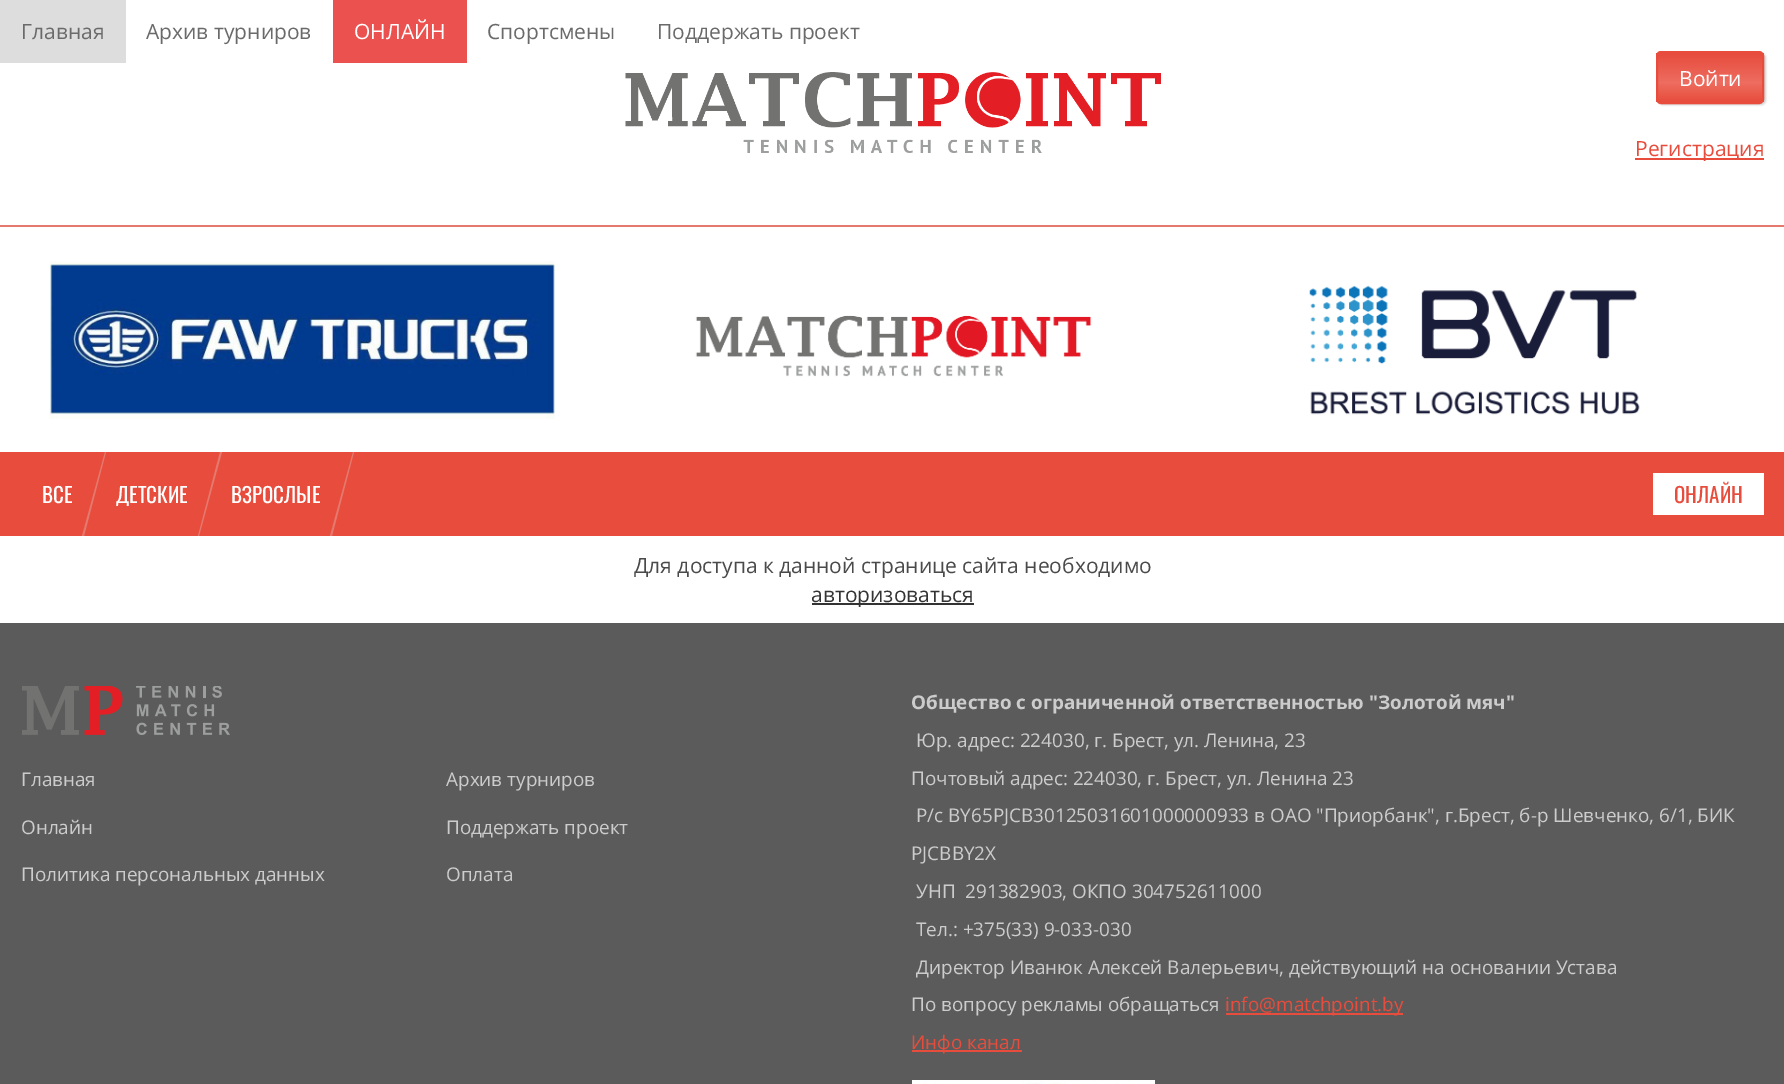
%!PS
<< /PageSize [1784 1084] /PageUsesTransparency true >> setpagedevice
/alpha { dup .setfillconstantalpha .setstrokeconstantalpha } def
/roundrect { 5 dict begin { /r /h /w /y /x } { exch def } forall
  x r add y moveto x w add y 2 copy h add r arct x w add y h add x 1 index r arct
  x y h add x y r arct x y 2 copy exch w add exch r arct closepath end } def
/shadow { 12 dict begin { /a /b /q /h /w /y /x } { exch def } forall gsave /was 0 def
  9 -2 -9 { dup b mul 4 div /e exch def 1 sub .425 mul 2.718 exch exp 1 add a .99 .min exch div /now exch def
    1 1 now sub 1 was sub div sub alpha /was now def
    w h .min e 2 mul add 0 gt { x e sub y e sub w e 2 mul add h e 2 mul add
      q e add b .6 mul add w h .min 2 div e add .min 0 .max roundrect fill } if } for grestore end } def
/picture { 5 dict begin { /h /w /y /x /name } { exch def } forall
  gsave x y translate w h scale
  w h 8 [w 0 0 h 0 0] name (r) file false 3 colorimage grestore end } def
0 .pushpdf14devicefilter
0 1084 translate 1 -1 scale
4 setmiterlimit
1 setgray
0 0 1784 1084 rectfill
0.898 0.475 0.431 setrgbcolor
0 225 1784 2 rectfill
0.867 setgray
0 0 126 63 rectfill
/OpenSans-Regular [21 0 0 -21 0 0] selectfont
0.416 setgray
21 39 moveto (Главная) show
146 39 moveto (Архив турниров) show
0.918 0.318 0.31 setrgbcolor
333 0 134 63 rectfill
1 setgray
354 39 moveto (ОНЛАЙН) show
0.416 setgray
487 39 moveto (Спортсмены) show
657 39 moveto (Поддержать проект) show
(img1.rgb) 625 72 536 81 picture
0.8 setgray
1658 53 108 52 5 1 1 shadow
gsave
1656 51 108 53 5 roundrect clip newpath
gsave newpath 1656 53 moveto 1764 53 lineto 1764 102 lineto 1656 102 lineto closepath clip newpath
<< /ShadingType 2 /ColorSpace /DeviceRGB /Coords [1710 53 1710 102] /Extend [true true] /Function << /FunctionType 3 /Domain [0 1] /Functions [<< /FunctionType 2 /Domain [0 1] /C0 [0.906 0.298 0.235] /C1 [0.929 0.427 0.376] /N 1 >> << /FunctionType 2 /Domain [0 1] /C0 [0.929 0.427 0.376] /C1 [0.906 0.298 0.235] /N 1 >>] /Bounds [0.6] /Encode [0 1 0 1] >> >> shfill grestore
grestore
0.906 0.298 0.235 setrgbcolor
2 setlinewidth
1657 52 106 51 4 roundrect stroke
1 setgray
1679 86 moveto (Войти) show
0.906 0.298 0.235 setrgbcolor
1635 158 129 2 rectfill
1635 156 moveto (Регистрация) show
(img2.rgb) 49 261 506 158 picture
(img3.rgb) 695 315 397 62 picture
(img4.rgb) 1309 285 331 130 picture
0 452 1784 84 rectfill
0.898 0.475 0.431 setrgbcolor
newpath 105 452 moveto 106 452 lineto 84 536 lineto 82 536 lineto closepath fill
/Oswald-Regular [21 0 0 -21 0 0] selectfont
1 setgray
42 503 moveto (ВСЕ) show
0.898 0.475 0.431 setrgbcolor
newpath 220 452 moveto 222 452 lineto 199 536 lineto 198 536 lineto closepath fill
1 setgray
116 503 moveto (ДЕТСКИЕ) show
0.898 0.475 0.431 setrgbcolor
newpath 353 452 moveto 354 452 lineto 332 536 lineto 330 536 lineto closepath fill
1 setgray
231 503 moveto (ВЗРОСЛЫЕ) show
1653 473 111 42 rectfill
0.906 0.298 0.235 setrgbcolor
1674 503 moveto (ОНЛАЙН) show
/OpenSans-Regular [21 0 0 -21 0 0] selectfont
0.29 setgray
634 573 moveto (Для доступа к данной странице сайта необходимо) show
0.2 setgray
812 603 162 2 rectfill
811 602 moveto (авторизоваться) show
0.357 setgray
0 623 1784 461 rectfill
(img5.rgb) 22 686 208 49 picture
/OpenSans-Regular [18.9 0 0 -18.9 0 0] selectfont
0.8 setgray
21 786 moveto (Главная) show
446 786 moveto (Архив турниров) show
21 834 moveto (Онлайн) show
446 834 moveto (Поддержать проект) show
21 881 moveto (Политика персональных данных) show
446 881 moveto (Оплата) show
/OpenSans-Bold [18.9 0 0 -18.9 0 0] selectfont
911 709 moveto (Общество с ограниченной ответственностью "Золотой мяч") show
/OpenSans-Regular [18.9 0 0 -18.9 0 0] selectfont
916 747 moveto (Юр. адрес: 224030, г. Брест, ул. Ленина, 23) show
911 785 moveto (Почтовый адрес: 224030, г. Брест, ул. Ленина 23) show
916 822 moveto (Р/с BY65PJCB30125031601000000933 в ОАО "Приорбанк", г.Брест, б-р Шевченко, 6/1, БИК) show
911 860 moveto (PJCBBY2X) show
916 898 moveto (УНП  291382903, ОКПО 304752611000) show
916 936 moveto (Тел.: +375\(33\) 9-033-030) show
916 974 moveto (Директор Иванюк Алексей Валерьевич, действующий на основании Устава) show
911 1011 moveto (По вопросу рекламы обращаться) show
0.906 0.298 0.235 setrgbcolor
1226 1013 177 2 rectfill
1225 1011 moveto (info@matchpoint.by) show
912 1050 110 2 rectfill
911 1049 moveto (Инфо канал) show
(img6.rgb) 912 1080 243 4 picture
.poppdf14devicefilter showpage
